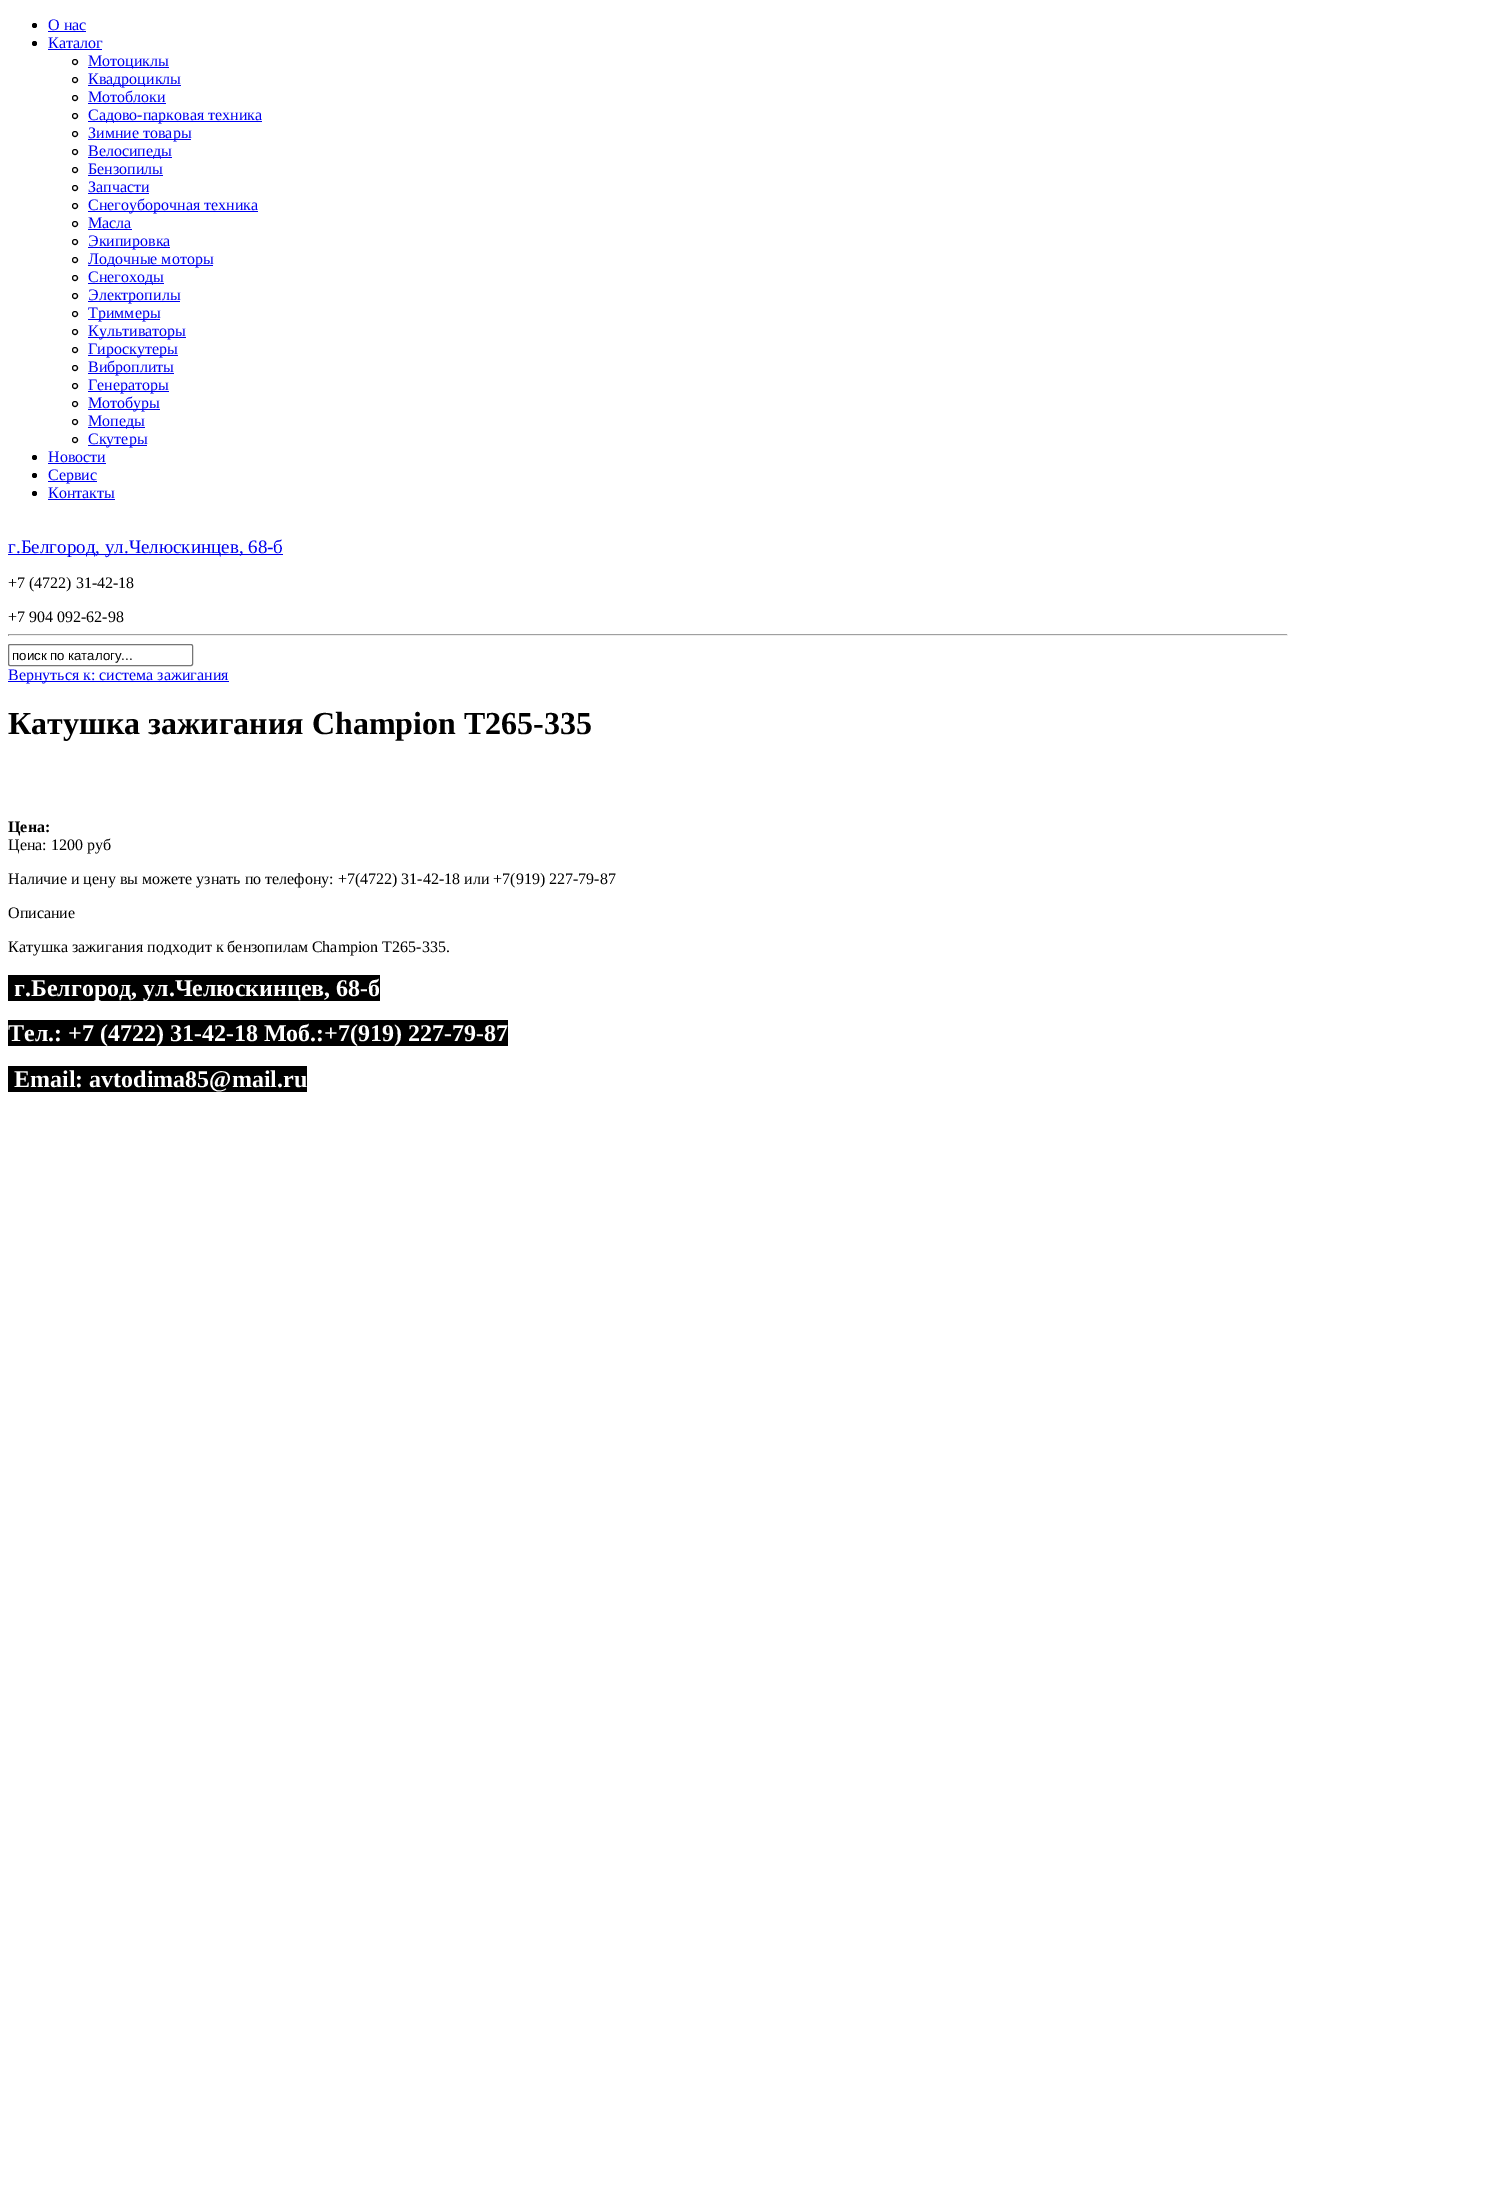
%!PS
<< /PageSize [1505 2192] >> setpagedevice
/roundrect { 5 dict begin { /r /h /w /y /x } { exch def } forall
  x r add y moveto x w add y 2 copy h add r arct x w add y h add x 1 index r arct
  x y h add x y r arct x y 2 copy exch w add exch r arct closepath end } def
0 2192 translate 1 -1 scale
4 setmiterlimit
1 setgray
0 0 1505 2192 rectfill
0 setgray
newpath 34.5 25.5 2.5 0 360 arc closepath fill
/LiberationSerif-Regular [16 0 0 -16 0 0] selectfont
0 0 0.933 setrgbcolor
48 30 moveto (О нас) show
48 31 38 1 rectfill
0 setgray
newpath 34.5 43.5 2.5 0 360 arc closepath fill
0 0 0.933 setrgbcolor
48 48 moveto (Каталог) show
48 49 54 1 rectfill
0 setgray
newpath 75 62 2.5 0 360 arc closepath stroke
0 0 0.933 setrgbcolor
88 67 81 1 rectfill
88 66 moveto (Мотоциклы) show
0 setgray
newpath 75 80 2.5 0 360 arc closepath stroke
0 0 0.933 setrgbcolor
88 85 93 1 rectfill
88 84 moveto (Квадроциклы) show
0 setgray
newpath 75 98 2.5 0 360 arc closepath stroke
0 0 0.933 setrgbcolor
88 102 moveto (Мотоблоки) show
88 103 78 1 rectfill
0 setgray
newpath 75 116 2.5 0 360 arc closepath stroke
0 0 0.933 setrgbcolor
88 121 174 1 rectfill
88 120 moveto (Садово-парковая техника) show
0 setgray
newpath 75 134 2.5 0 360 arc closepath stroke
0 0 0.933 setrgbcolor
88 139 103 1 rectfill
88 138 moveto (Зимние товары) show
0 setgray
newpath 75 152 2.5 0 360 arc closepath stroke
0 0 0.933 setrgbcolor
88 157 84 1 rectfill
88 156 moveto (Велосипеды) show
0 setgray
newpath 75 170 2.5 0 360 arc closepath stroke
0 0 0.933 setrgbcolor
88 174 moveto (Бензопилы) show
88 175 75 1 rectfill
0 setgray
newpath 75 188 2.5 0 360 arc closepath stroke
0 0 0.933 setrgbcolor
88 192 moveto (Запчасти) show
88 193 61 1 rectfill
0 setgray
newpath 75 206 2.5 0 360 arc closepath stroke
0 0 0.933 setrgbcolor
88 211 170 1 rectfill
88 210 moveto (Снегоуборочная техника) show
0 setgray
newpath 75 224 2.5 0 360 arc closepath stroke
0 0 0.933 setrgbcolor
88 228 moveto (Масла) show
88 229 44 1 rectfill
0 setgray
newpath 75 242 2.5 0 360 arc closepath stroke
0 0 0.933 setrgbcolor
88 247 82 1 rectfill
88 246 moveto (Экипировка) show
0 setgray
newpath 75 260 2.5 0 360 arc closepath stroke
0 0 0.933 setrgbcolor
88 265 125 1 rectfill
88 264 moveto (Лодочные моторы) show
0 setgray
newpath 75 278 2.5 0 360 arc closepath stroke
0 0 0.933 setrgbcolor
88 283 76 1 rectfill
88 282 moveto (Снегоходы) show
0 setgray
newpath 75 296 2.5 0 360 arc closepath stroke
0 0 0.933 setrgbcolor
88 301 92 1 rectfill
88 300 moveto (Электропилы) show
0 setgray
newpath 75 314 2.5 0 360 arc closepath stroke
0 0 0.933 setrgbcolor
88 319 72 1 rectfill
88 318 moveto (Триммеры) show
0 setgray
newpath 75 332 2.5 0 360 arc closepath stroke
0 0 0.933 setrgbcolor
88 337 98 1 rectfill
88 336 moveto (Культиваторы) show
0 setgray
newpath 75 350 2.5 0 360 arc closepath stroke
0 0 0.933 setrgbcolor
88 355 90 1 rectfill
88 354 moveto (Гироскутеры) show
0 setgray
newpath 75 368 2.5 0 360 arc closepath stroke
0 0 0.933 setrgbcolor
88 373 86 1 rectfill
88 372 moveto (Виброплиты) show
0 setgray
newpath 75 386 2.5 0 360 arc closepath stroke
0 0 0.933 setrgbcolor
88 391 81 1 rectfill
88 390 moveto (Генераторы) show
0 setgray
newpath 75 404 2.5 0 360 arc closepath stroke
0 0 0.933 setrgbcolor
88 409 72 1 rectfill
88 408 moveto (Мотобуры) show
0 setgray
newpath 75 422 2.5 0 360 arc closepath stroke
0 0 0.933 setrgbcolor
88 427 57 1 rectfill
88 426 moveto (Мопеды) show
0 setgray
newpath 75 440 2.5 0 360 arc closepath stroke
0 0 0.933 setrgbcolor
88 445 59 1 rectfill
88 444 moveto (Скутеры) show
0 setgray
newpath 34.5 457.5 2.5 0 360 arc closepath fill
0 0 0.933 setrgbcolor
48 462 moveto (Новости) show
48 463 58 1 rectfill
0 setgray
newpath 34.5 475.5 2.5 0 360 arc closepath fill
0 0 0.933 setrgbcolor
48 481 49 1 rectfill
48 480 moveto (Сервис) show
0 setgray
newpath 34.5 493.5 2.5 0 360 arc closepath fill
0 0 0.933 setrgbcolor
48 498 moveto (Контакты) show
48 499 67 1 rectfill
8 554 275 1 rectfill
/LiberationSerif-Regular [19 0 0 -19 0 0] selectfont
8 553 moveto (г.Белгород, ул.Челюскинцев, 68-б) show
/LiberationSerif-Regular [16 0 0 -16 0 0] selectfont
0 setgray
8 588 moveto (+7 \(4722\) 31-42-18) show
8 622 moveto (+7 904 092-62-98) show
0.624 setgray
8 634 1280 1 rectfill
0.933 setgray
1287 634 1 2 rectfill
8 635 1280 1 rectfill
0.624 setgray
8 634 1 2 rectfill
0.463 setgray
8.5 644.5 184 21 1.5 roundrect stroke
/LiberationSans-Regular [13.25 0 0 -13.25 0 0] selectfont
0 setgray
12 660 moveto (поиск по каталогу...) show
0 0 0.933 setrgbcolor
8 681 221 1 rectfill
/LiberationSerif-Regular [16 0 0 -16 0 0] selectfont
8 680 moveto (Вернуться к: система зажигания) show
/LiberationSerif-Bold [32 0 0 -32 0 0] selectfont
0 setgray
8 734 moveto (Катушка зажигания Champion Т265-335) show
/LiberationSerif-Bold [16 0 0 -16 0 0] selectfont
8 832 moveto (Цена:) show
/LiberationSerif-Regular [16 0 0 -16 0 0] selectfont
8 850 moveto (Цена: 1200 руб) show
8 884 moveto (Наличие и цену вы можете узнать по телефону: +7\(4722\) 31-42-18 или +7\(919\) 227-79-87) show
8 918 moveto (Описание) show
8 952 moveto (Катушка зажигания подходит к бензопилам Champion Т265-335.) show
8 975 372 26 rectfill
/LiberationSerif-Bold [24 0 0 -24 0 0] selectfont
1 setgray
14 996 moveto (г.Белгород, ул.Челюскинцев, 68-б) show
0 setgray
8 1020 500 26 rectfill
1 setgray
8 1041 moveto (Тел.: +7 \(4722\) 31-42-18 Моб.:+7\(919\) 227-79-87) show
0 setgray
8 1066 299 26 rectfill
1 setgray
14 1087 moveto (Email: avtodima85@mail.ru) show
showpage
